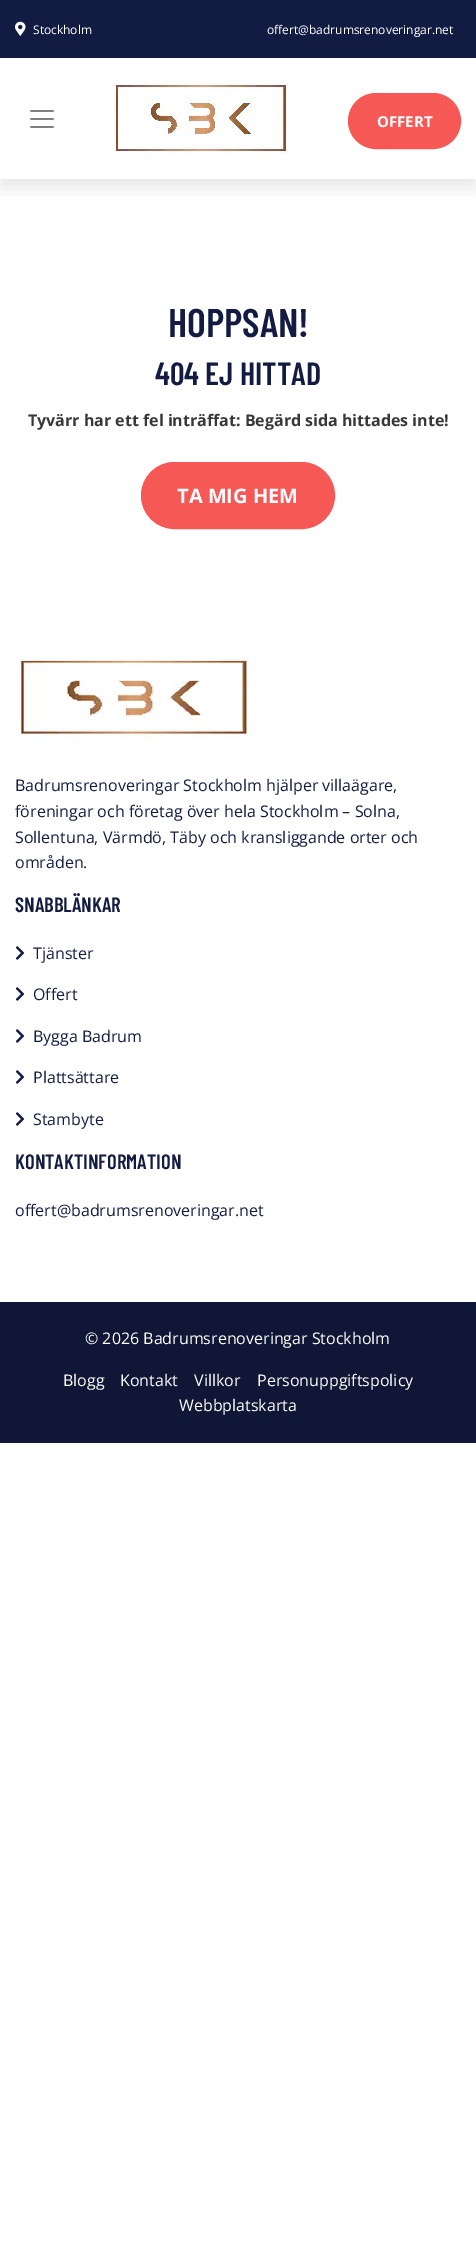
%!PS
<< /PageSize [476 2256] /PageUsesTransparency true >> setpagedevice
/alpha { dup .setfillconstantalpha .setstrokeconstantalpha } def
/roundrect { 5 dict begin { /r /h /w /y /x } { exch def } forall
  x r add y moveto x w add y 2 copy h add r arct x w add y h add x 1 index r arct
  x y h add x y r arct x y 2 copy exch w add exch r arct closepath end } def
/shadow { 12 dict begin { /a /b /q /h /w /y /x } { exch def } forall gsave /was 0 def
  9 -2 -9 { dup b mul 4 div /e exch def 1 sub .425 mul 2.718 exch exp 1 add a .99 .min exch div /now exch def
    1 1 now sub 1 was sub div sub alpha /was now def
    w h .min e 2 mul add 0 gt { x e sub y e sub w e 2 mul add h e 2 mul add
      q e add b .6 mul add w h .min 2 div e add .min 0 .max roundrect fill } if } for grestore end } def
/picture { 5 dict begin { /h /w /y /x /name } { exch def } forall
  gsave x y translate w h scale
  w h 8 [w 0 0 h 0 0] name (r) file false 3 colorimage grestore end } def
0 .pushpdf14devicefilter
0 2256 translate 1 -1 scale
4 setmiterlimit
1 setgray
0 0 476 2256 rectfill
0.071 0.106 0.259 setrgbcolor
0 0 476 58 rectfill
(img1.rgb) 15 21 11 15 picture
/OpenSans-Regular [12 0 0 -12 0 0] selectfont
1 setgray
33 34 moveto (Stockholm) show
267 34 moveto (offert@badrumsrenoveringar.net) show
gsave
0 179 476 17 rectclip
0 setgray
0 67 476 121 0 10 0.09 shadow
grestore
(img2.rgb) 30 110 24 18 picture
(img3.rgb) 115 82 177 72 picture
0.965 0.345 0.333 setrgbcolor
348.5 93.5 112 55 27.5 roundrect gsave fill grestore
stroke
/OpenSans-Bold [15 0 0 -15 0 0] selectfont
1 setgray
377 127 moveto (OFFERT) show
/BarlowCondensed-SemiBold [40 0 0 -40 0 0] selectfont
0.071 0.106 0.259 setrgbcolor
168 337 moveto (HOPPSAN!) show
/BarlowCondensed-SemiBold [32 0 0 -32 0 0] selectfont
155 385 moveto (404 EJ HITTAD) show
/OpenSans-Bold [16 0 0 -16 0 0] selectfont
0.22 setgray
28 426 moveto (Tyvärr har ett fel inträffat: Begärd sida hittades inte!) show
0.965 0.345 0.333 setrgbcolor
141.5 462.5 193 66 33 roundrect gsave fill grestore
stroke
/OpenSans-Bold [20 0 0 -20 0 0] selectfont
1 setgray
177 503 moveto (TA MIG HEM) show
(img4.rgb) 15 657 233 84 picture
/OpenSans-Regular [16 0 0 -16 0 0] selectfont
0.071 0.106 0.259 setrgbcolor
15 791 moveto (Badrumsrenoveringar Stockholm hjälper villaägare,) show
15 817 moveto (föreningar och företag över hela Stockholm – Solna,) show
15 843 moveto (Sollentuna, Värmdö, Täby och kransliggande orter och) show
15 868 moveto (områden.) show
/BarlowCondensed-SemiBold [20.75 0 0 -20.75 0 0] selectfont
15 912 moveto (SNABBLÄNKAR) show
(img5.rgb) 15 946 10 14 picture
/OpenSans-Regular [16 0 0 -16 0 0] selectfont
33 959 moveto (Tjänster) show
(img5.rgb) 15 987 10 14 picture
33 1000 moveto (Offert) show
(img5.rgb) 15 1029 10 14 picture
33 1042 moveto (Bygga Badrum) show
(img5.rgb) 15 1070 10 14 picture
33 1083 moveto (Plattsättare) show
(img5.rgb) 15 1112 10 14 picture
33 1125 moveto (Stambyte) show
/BarlowCondensed-SemiBold [20.75 0 0 -20.75 0 0] selectfont
15 1169 moveto (KONTAKTINFORMATION) show
/OpenSans-Regular [16 0 0 -16 0 0] selectfont
15 1216 moveto (offert@badrumsrenoveringar.net) show
0.059 0.086 0.212 setrgbcolor
0 1302 476 141 rectfill
1 setgray
85 1344 moveto (© 2026 Badrumsrenoveringar Stockholm) show
63 1386 moveto (Blogg) show
120 1386 moveto (Kontakt) show
194 1386 moveto (Villkor) show
257 1386 moveto (Personuppgiftspolicy) show
179 1411 moveto (Webbplatskarta) show
.poppdf14devicefilter showpage
